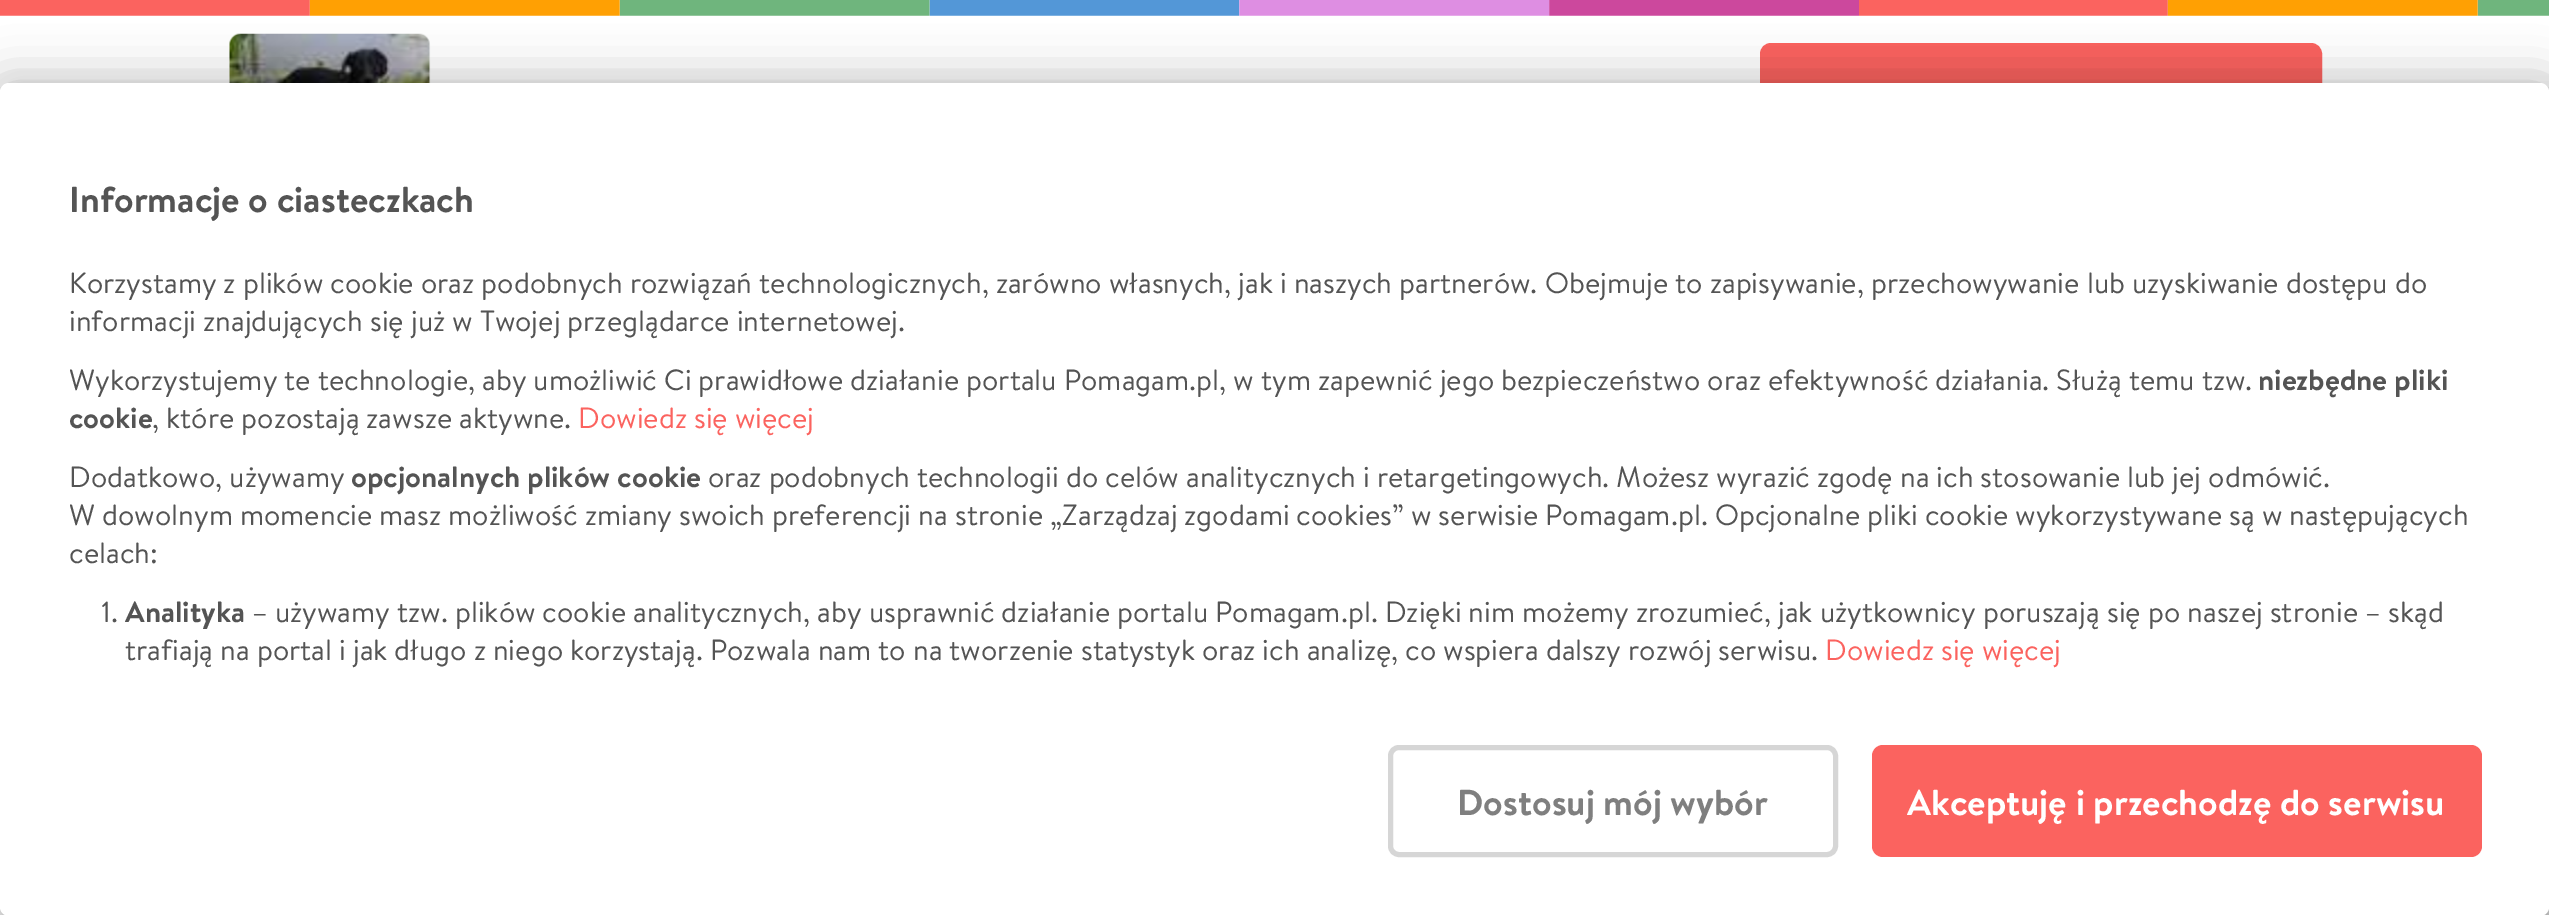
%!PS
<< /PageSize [2549 915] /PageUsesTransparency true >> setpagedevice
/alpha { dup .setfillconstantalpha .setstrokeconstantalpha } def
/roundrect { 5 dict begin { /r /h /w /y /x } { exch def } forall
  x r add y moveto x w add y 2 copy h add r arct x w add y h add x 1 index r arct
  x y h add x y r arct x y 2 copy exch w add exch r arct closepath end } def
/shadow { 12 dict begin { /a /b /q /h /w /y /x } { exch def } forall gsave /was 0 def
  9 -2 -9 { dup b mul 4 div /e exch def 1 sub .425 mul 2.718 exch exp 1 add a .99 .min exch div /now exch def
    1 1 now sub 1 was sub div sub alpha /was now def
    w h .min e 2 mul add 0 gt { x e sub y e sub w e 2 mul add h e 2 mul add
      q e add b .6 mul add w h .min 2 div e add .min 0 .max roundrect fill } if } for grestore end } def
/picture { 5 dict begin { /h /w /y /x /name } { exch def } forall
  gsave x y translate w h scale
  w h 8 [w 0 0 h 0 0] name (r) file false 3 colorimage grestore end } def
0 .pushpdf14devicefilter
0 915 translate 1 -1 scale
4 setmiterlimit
0.984 setgray
0 0 2549 915 rectfill
1 setgray
0 0 2549 92 rectfill
(img1.rgb) 0 0 2549 16 picture
(img2.rgb) 229 33 202 50 picture
0.984 0.388 0.373 setrgbcolor
1762.5 45.5 557 107 8.5 roundrect gsave fill grestore
5 setlinewidth
stroke
0 setgray
11 95 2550 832 9 11 0.19 shadow
-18 74 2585 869 27 22.5 0.2 shadow
1 setgray
0 83 2549 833 9 roundrect fill
/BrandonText-Bold [36 0 0 -36 0 0] selectfont
0.329 setgray
69 212 moveto (Informacje o ciasteczkach) show
/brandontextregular-Regular [29.23 0 0 -29.23 0 0] selectfont
69 293 moveto (Korzystamy z plików cookie oraz podobnych rozwiązań technologicznych, zarówno własnych, jak i naszych partnerów. Obejmuje to zapisywanie, przechowywanie lub uzyskiwanie dostępu do) show
69 331 moveto (informacji znajdujących się już w Twojej przeglądarce internetowej.) show
gsave
70 243 2412 466 rectclip
69 390 moveto (Wykorzystujemy te technologie, aby umożliwić Ci prawidłowe działanie portalu Pomagam.pl, w tym zapewnić jego bezpieczeństwo oraz efektywność działania. Służą temu tzw.) show
grestore
/BrandonText-Bold [29.23 0 0 -29.23 0 0] selectfont
2258 390 moveto (niezbędne pliki) show
gsave
70 243 2412 466 rectclip
69 428 moveto (cookie) show
grestore
/brandontextregular-Regular [29.23 0 0 -29.23 0 0] selectfont
152 428 moveto (, które pozostają zawsze aktywne.) show
0.984 0.388 0.373 setrgbcolor
578 428 moveto (Dowiedz się więcej) show
0.329 setgray
69 487 moveto (Dodatkowo, używamy) show
/BrandonText-Bold [29.23 0 0 -29.23 0 0] selectfont
351 487 moveto (opcjonalnych plików cookie) show
/brandontextregular-Regular [29.23 0 0 -29.23 0 0] selectfont
708 487 moveto (oraz podobnych technologii do celów analitycznych i retargetingowych. Możesz wyrazić zgodę na ich stosowanie lub jej odmówić.) show
gsave
70 243 2412 466 rectclip
69 525 moveto (W dowolnym momencie masz możliwość zmiany swoich preferencji na stronie „Zarządzaj zgodami cookies” w serwisie Pomagam.pl. Opcjonalne pliki cookie wykorzystywane są w następujących) show
grestore
69 563 moveto (celach:) show
101 622 moveto (1.) show
/BrandonText-Bold [29.23 0 0 -29.23 0 0] selectfont
125 622 moveto (Analityka) show
/brandontextregular-Regular [29.23 0 0 -29.23 0 0] selectfont
252 622 moveto (– używamy tzw. plików cookie analitycznych, aby usprawnić działanie portalu Pomagam.pl. Dzięki nim możemy zrozumieć, jak użytkownicy poruszają się po naszej stronie – skąd) show
125 660 moveto (trafiają na portal i jak długo z niego korzystają. Pozwala nam to na tworzenie statystyk oraz ich analizę, co wspiera dalszy rozwój serwisu.) show
0.984 0.388 0.373 setrgbcolor
1825 660 moveto (Dowiedz się więcej) show
0.839 setgray
1390.5 747.5 445 107 8.5 roundrect stroke
/BrandonText-Bold [36 0 0 -36 0 0] selectfont
0.498 setgray
1457 815 moveto (Dostosuj mój wybór) show
0.984 0.388 0.373 setrgbcolor
1872 745 610 112 11 roundrect fill
1 setgray
1907 815 moveto (Akceptuję i przechodzę do serwisu) show
.poppdf14devicefilter showpage
